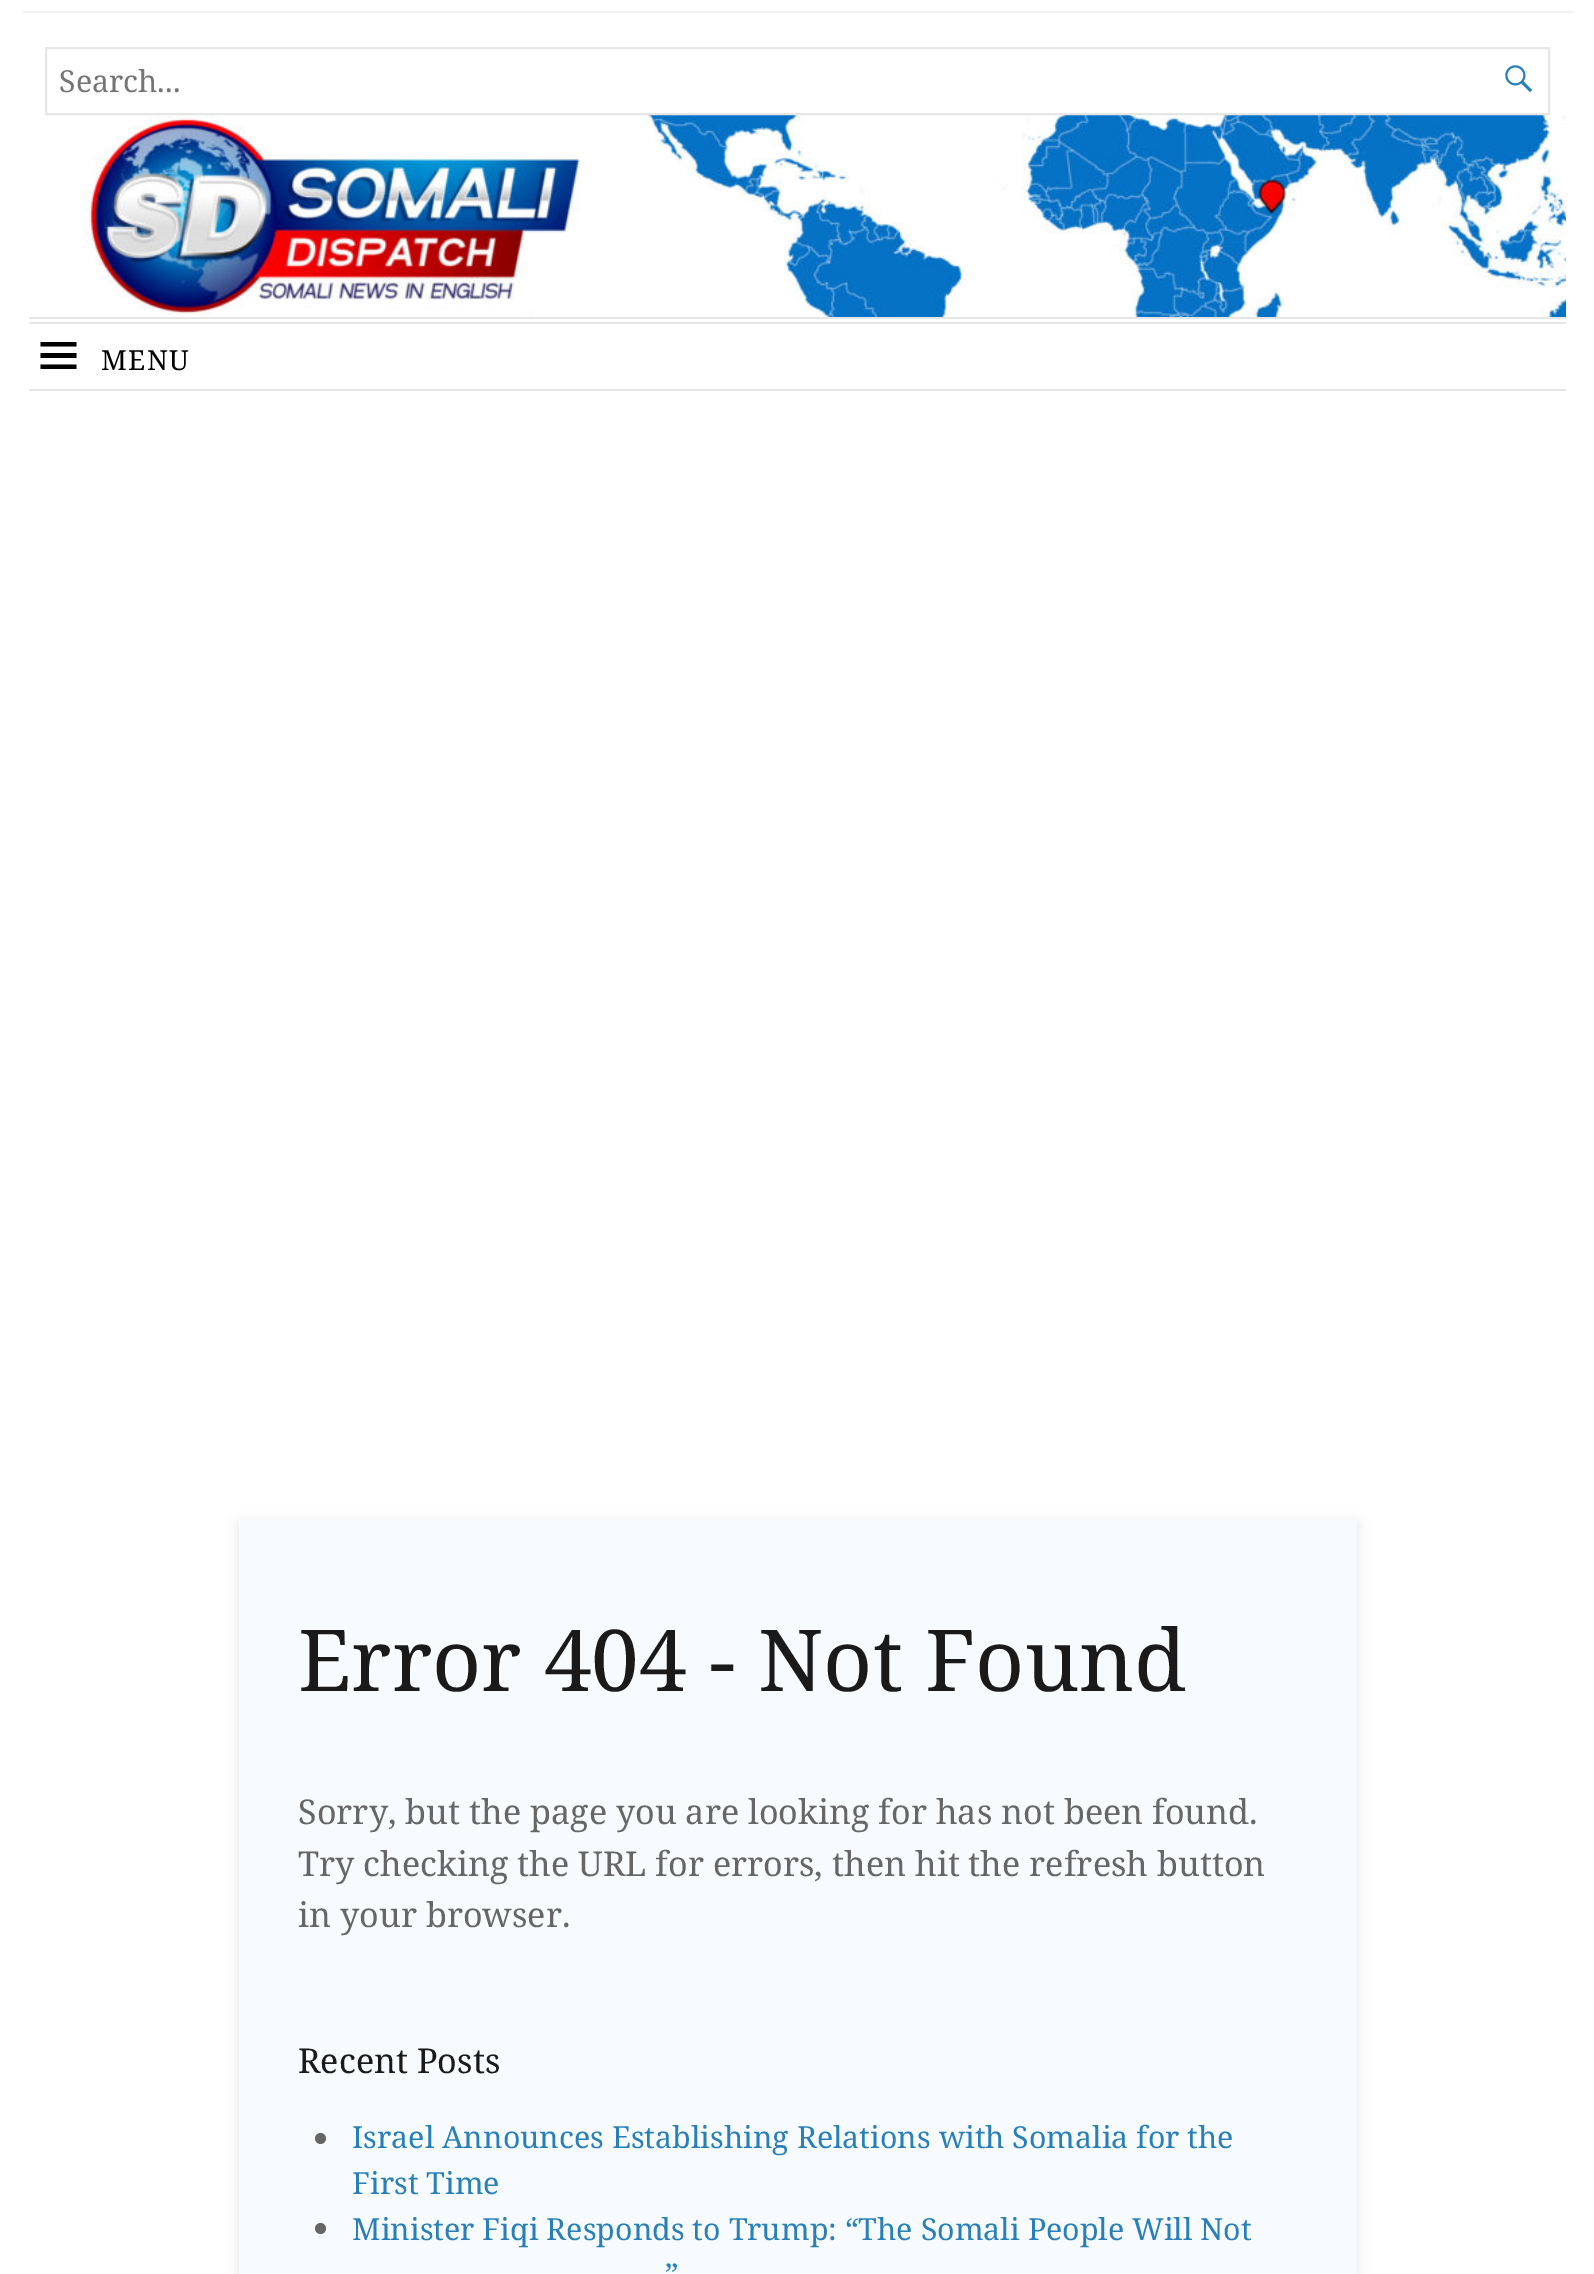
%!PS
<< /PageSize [1594 2274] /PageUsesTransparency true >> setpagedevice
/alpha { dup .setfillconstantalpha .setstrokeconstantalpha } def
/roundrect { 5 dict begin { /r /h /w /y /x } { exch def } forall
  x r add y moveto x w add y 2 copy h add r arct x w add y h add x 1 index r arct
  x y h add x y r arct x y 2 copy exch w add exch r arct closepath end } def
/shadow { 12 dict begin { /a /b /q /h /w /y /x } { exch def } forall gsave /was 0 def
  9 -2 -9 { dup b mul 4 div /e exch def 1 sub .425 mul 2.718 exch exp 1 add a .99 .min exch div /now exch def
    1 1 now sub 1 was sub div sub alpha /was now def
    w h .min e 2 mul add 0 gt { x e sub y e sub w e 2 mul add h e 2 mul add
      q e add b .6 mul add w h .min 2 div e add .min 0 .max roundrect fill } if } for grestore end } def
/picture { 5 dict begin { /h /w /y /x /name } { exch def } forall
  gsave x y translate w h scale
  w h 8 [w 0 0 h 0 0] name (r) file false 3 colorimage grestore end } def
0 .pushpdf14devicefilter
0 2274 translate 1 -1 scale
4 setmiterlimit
1 setgray
0 0 1594 2274 rectfill
0.949 setgray
23 11 1550 2 rectfill
(img2.rgb) 83 114 1483 203 picture
0.902 setgray
2 setlinewidth
46 48 1503 66 rectstroke
/NotoSerif-Regular [30.4 0 0 -30.4 0 0] selectfont
0.459 setgray
59 92 moveto (Search...) show
(img1.rgb) 1505 65 28 28 picture
0.902 setgray
29 317 1537 2 rectfill
29 322 1537 2 rectfill
29 389 1537 2 rectfill
0 setgray
newpath 40.5 369 moveto 40.5 364.5 lineto 76.5 364.5 lineto 76.5 369 lineto closepath 40.5 342 moveto 76.5 342 lineto 76.5 346.5 lineto 40.5 346.5 lineto closepath 40.5 358 moveto 40.5 353 lineto 76.5 353 lineto 76.5 358 lineto closepath fill
/NotoSerif-Regular [27.5 0 0 -27.5 0 0] selectfont
101 370 moveto 1.5 0 (MENU) ashow
239 1523 1118 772 0 7 0.1 shadow
0.973 0.984 0.992 setrgbcolor
239 1519 1118 755 rectfill
/NotoSerif-Regular [85.5 0 0 -85.5 0 0] selectfont
0.102 setgray
298 1691 moveto (Error 404 - Not Found) show
/NotoSerif-Regular [34.2 0 0 -34.2 0 0] selectfont
0.4 setgray
298 1824 moveto (Sorry, but the page you are looking for has not been found.) show
298 1876 moveto (Try checking the URL for errors, then hit the refresh button) show
298 1927 moveto (in your browser.) show
0.102 setgray
298 2073 moveto (Recent Posts) show
0.4 setgray
newpath 320.5 2138.5 5.5 0 360 arc closepath fill
/NotoSerif-Regular [30.4 0 0 -30.4 0 0] selectfont
0.161 0.502 0.725 setrgbcolor
352 2148 moveto (Israel Announces Establishing Relations with Somalia for the) show
352 2194 moveto (First Time) show
0.4 setgray
newpath 320.5 2228.5 5.5 0 360 arc closepath fill
0.161 0.502 0.725 setrgbcolor
352 2240 moveto (Minister Fiqi Responds to Trump: “The Somali People Will Not) show
665 2285 moveto (”) show
.poppdf14devicefilter showpage
